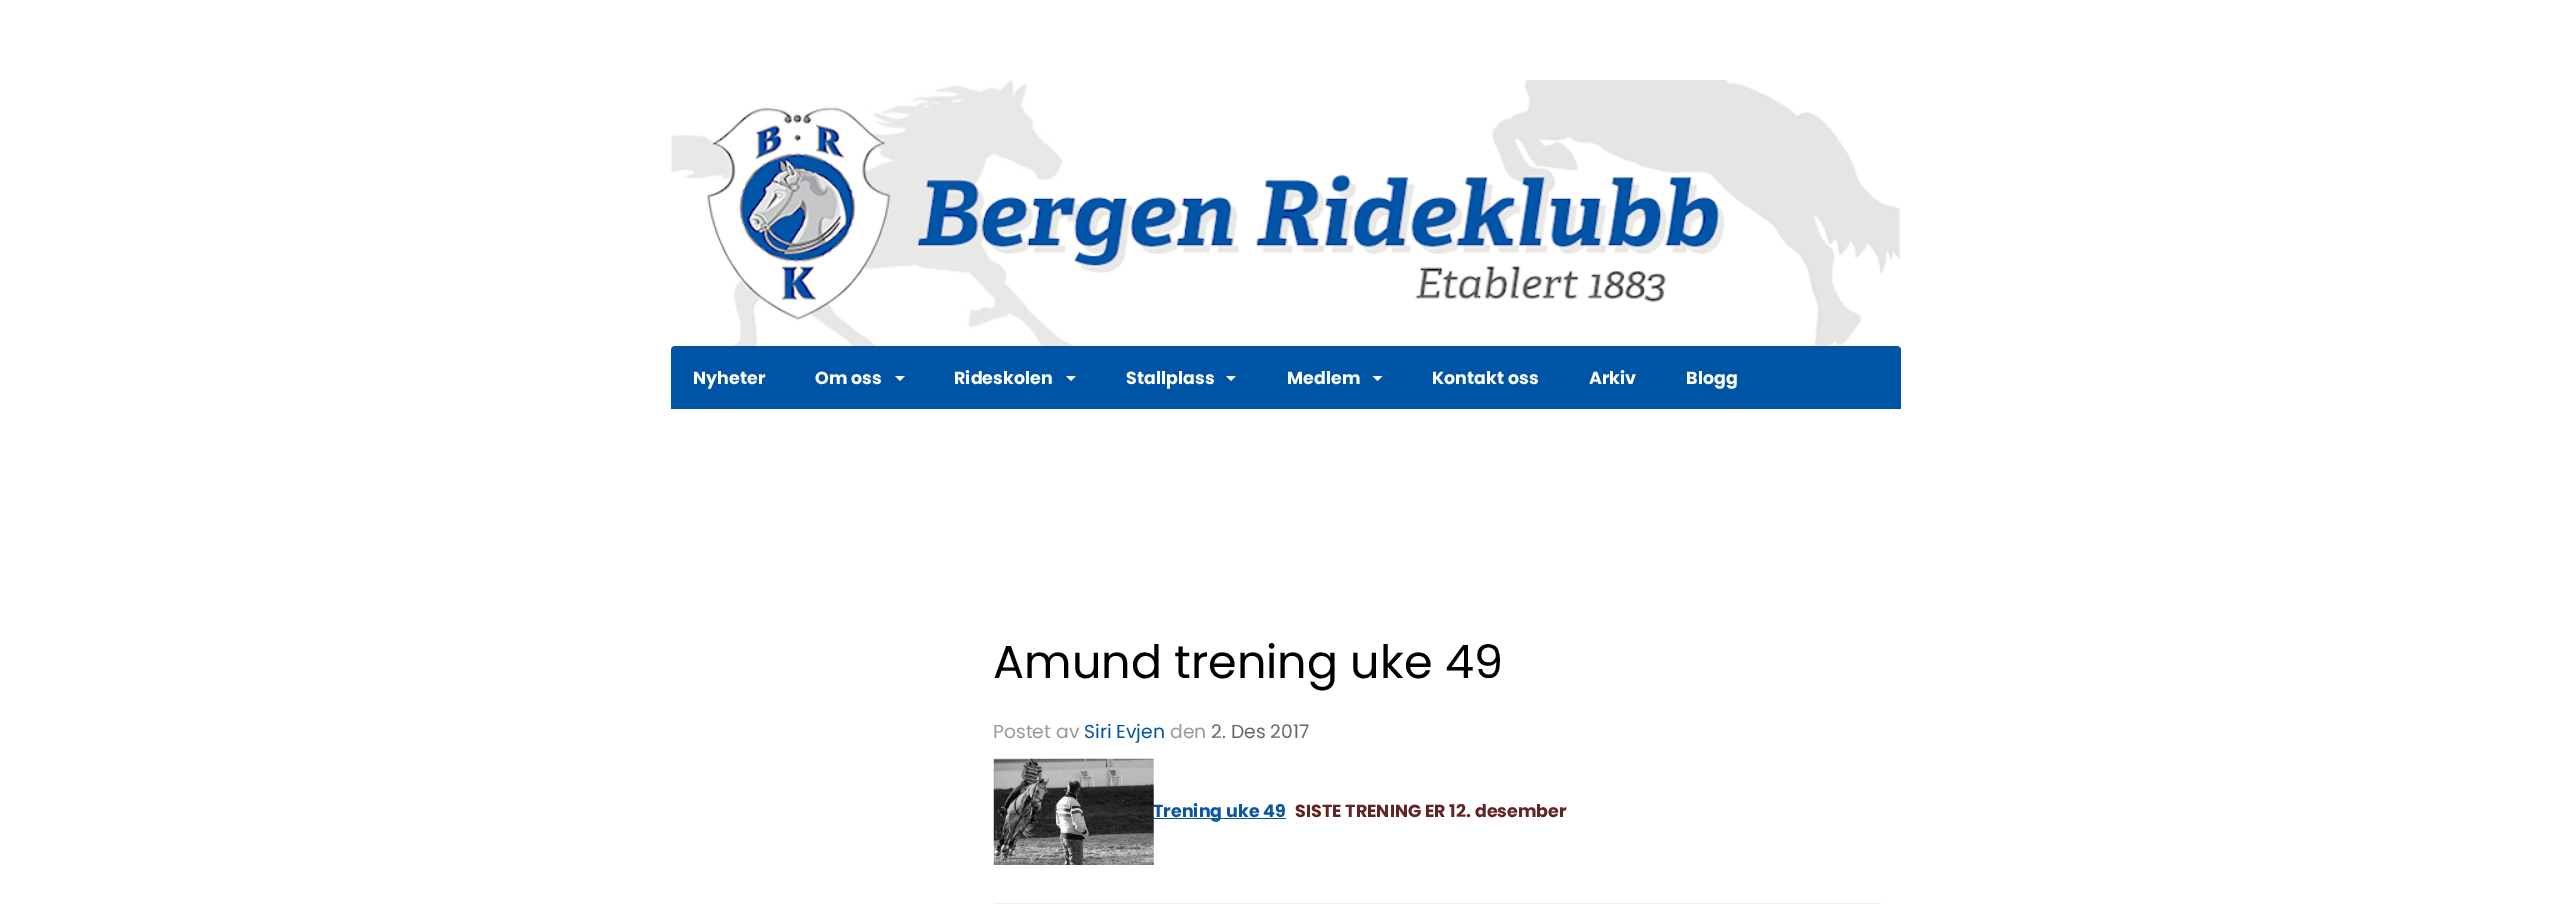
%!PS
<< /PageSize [2571 915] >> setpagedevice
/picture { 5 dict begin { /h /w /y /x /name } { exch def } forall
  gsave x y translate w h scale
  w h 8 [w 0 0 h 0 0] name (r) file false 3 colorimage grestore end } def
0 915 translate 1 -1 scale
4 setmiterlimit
1 setgray
0 0 2571 915 rectfill
(img1.rgb) 671 80 1229 266 picture
0 0.329 0.651 setrgbcolor
newpath 675 346 moveto 1897 346 lineto 1899 346 1901 348 1901 350 curveto 1901 409 lineto 671 409 lineto 671 350 lineto 671 348 673 346 675 346 curveto closepath fill
/Poppins-Bold [17.5 0 0 -17.5 0 0] selectfont
1 setgray
693 384 moveto (Nyheter) show
815 384 moveto (Om oss) show
newpath 895 376 moveto 905 376 lineto 900 381 lineto closepath fill
954 384 moveto (Rideskolen) show
newpath 1066 376 moveto 1076 376 lineto 1071 381 lineto closepath fill
1126 384 moveto (Stallplass) show
newpath 1226 376 moveto 1236 376 lineto 1231 381 lineto closepath fill
1287 384 moveto (Medlem) show
newpath 1372.5 376 moveto 1382.5 376 lineto 1377.5 381 lineto closepath fill
1432 384 moveto (Kontakt oss) show
1589 384 moveto (Arkiv) show
1686 384 moveto (Blogg) show
/Poppins-Regular [46.1 0 0 -46.1 0 0] selectfont
0 setgray
993 678 moveto (Amund trening uke 49) show
/Poppins-Regular [18.75 0 0 -18.75 0 0] selectfont
0.6 setgray
993 738 moveto (Postet av) show
0 0.329 0.651 setrgbcolor
1084 738 moveto (Siri Evjen) show
0.6 setgray
1170 738 moveto (den) show
0.4 setgray
1211 738 moveto (2. Des 2017) show
0.035 0.337 0.643 setrgbcolor
1154 818 132 1 rectfill
/Poppins-Bold [17.5 0 0 -17.5 0 0] selectfont
1153 817 moveto (Trening uke 49) show
(img2.rgb) 993 758 161 107 picture
0.388 0.141 0.137 setrgbcolor
1295 817 moveto (SISTE TRENING ER 12. desember) show
0.933 setgray
994 903 887 1 rectfill
showpage
